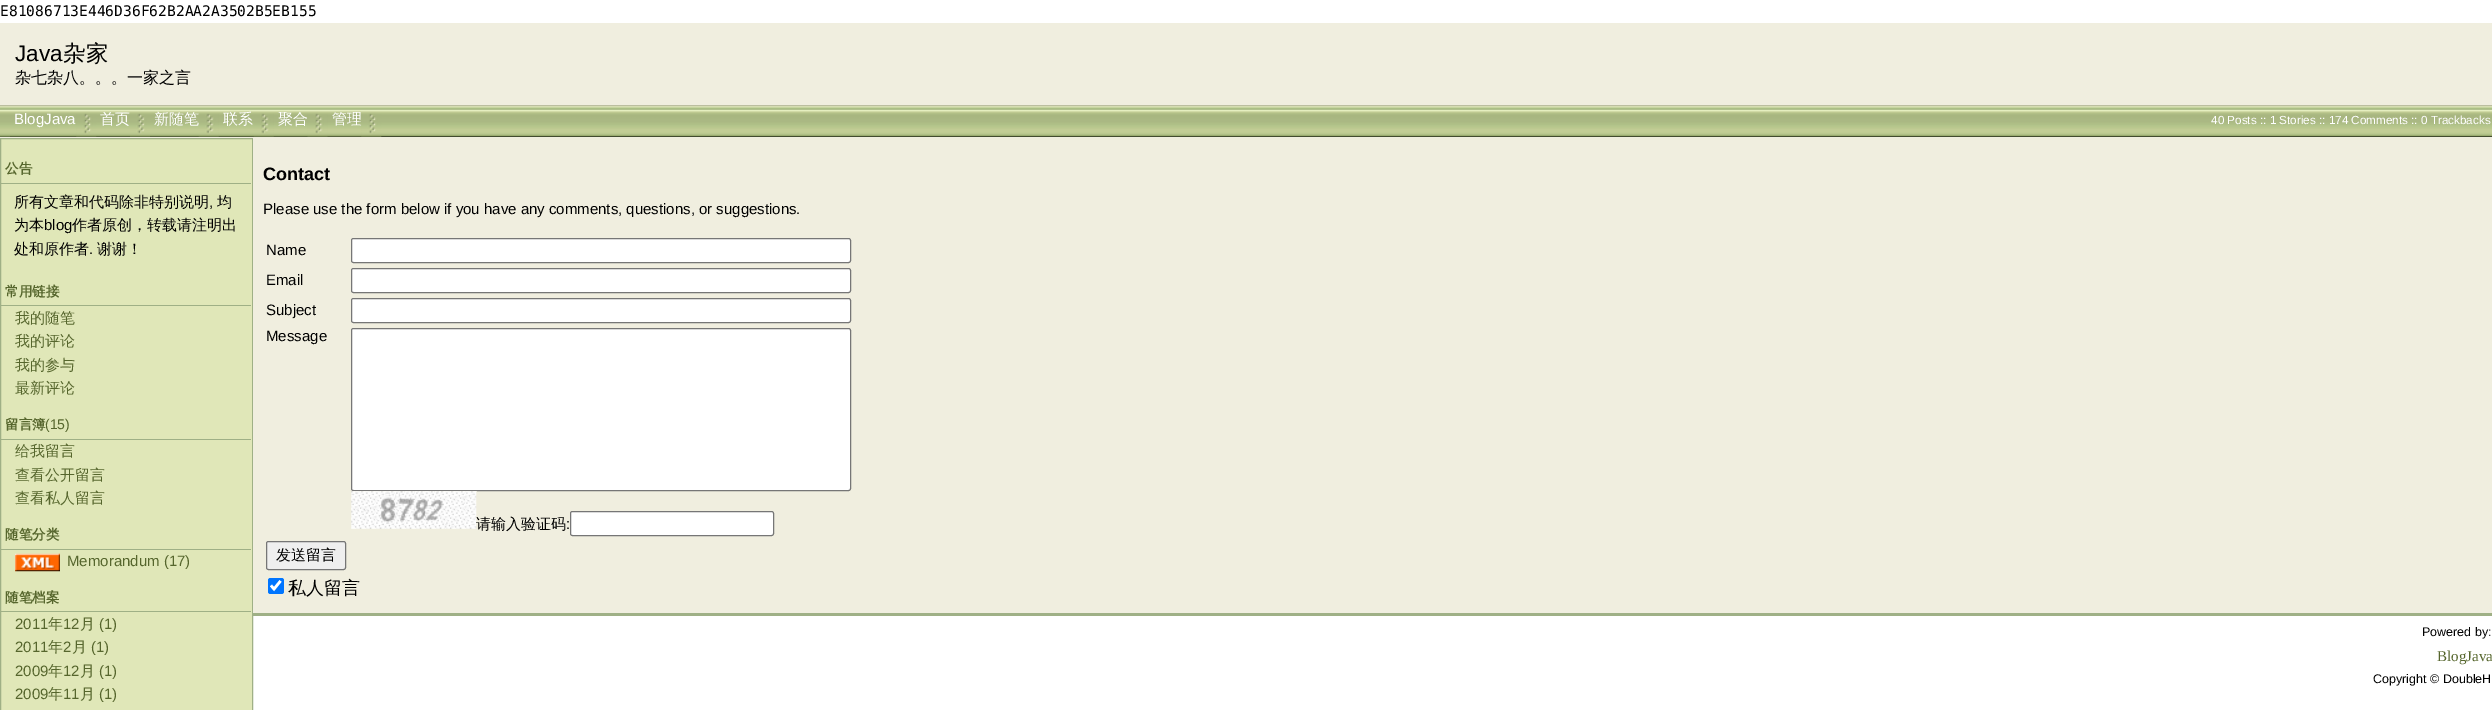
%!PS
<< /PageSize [2492 710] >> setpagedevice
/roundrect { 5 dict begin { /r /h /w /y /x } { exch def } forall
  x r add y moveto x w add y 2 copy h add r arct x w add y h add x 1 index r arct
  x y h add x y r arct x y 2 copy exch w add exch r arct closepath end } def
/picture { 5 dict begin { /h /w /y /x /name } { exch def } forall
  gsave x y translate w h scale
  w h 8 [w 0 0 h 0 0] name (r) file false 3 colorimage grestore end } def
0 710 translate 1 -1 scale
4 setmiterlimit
1 setgray
0 0 2492 710 rectfill
/DejaVuSansMono-Regular [14.6 0 0 -14.6 0 0] selectfont
0 setgray
0 16 moveto (E81086713E446D36F62B2AA2A3502B5EB155) show
0.941 0.933 0.875 setrgbcolor
0 23 2492 115 rectfill
/LiberationSans-Regular [22.5 0 0 -22.5 0 0] selectfont
0 setgray
15 61 moveto (Java) show
/WenQuanYiZenHei-Medium [22.5 0 0 -22.5 0 0] selectfont
63 61 moveto (杂家) show
/WenQuanYiZenHei-Medium [16 0 0 -16 0 0] selectfont
15 83 moveto (杂七杂八。。。一家之言) show
(img1.rgb) 0 105 2492 31 picture
0.259 0.294 0.184 setrgbcolor
10 136 2482 1 rectfill
(img2.rgb) 10 136 372 1 picture
0.404 0.459 0.29 setrgbcolor
0 136 10 1 rectfill
/LiberationSans-Regular [15 0 0 -15 0 0] selectfont
1 setgray
14 124 moveto (BlogJava) show
(img3.rgb) 76 113 21 24 picture
/WenQuanYiZenHei-Medium [15 0 0 -15 0 0] selectfont
100 124 moveto (首页) show
(img4.rgb) 130 113 20 24 picture
154 124 moveto (新随笔) show
(img5.rgb) 198 113 21 24 picture
223 124 moveto (联系) show
(img6.rgb) 253 113 21 24 picture
278 124 moveto (聚合) show
(img7.rgb) 307 113 21 24 picture
332 124 moveto (管理) show
(img8.rgb) 361 113 21 24 picture
/LiberationSans-Regular [11.7 0 0 -11.7 0 0] selectfont
2211 124 moveto (40 Posts :: 1 Stories :: 174 Comments :: 0 Trackbacks) show
0.624 0.69 0.525 setrgbcolor
250 613 2242 3 rectfill
0.878 0.906 0.722 setrgbcolor
newpath 0.5 138.5 moveto 252.5 138.5 lineto 252.5 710.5 lineto 0.5 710.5 lineto closepath gsave fill grestore
0.624 0.69 0.525 setrgbcolor
stroke
1 183 250 1 rectfill
/WenQuanYiZenHei-Bold [13.5 0 0 -13.5 0 0] selectfont
0.337 0.4 0.176 setrgbcolor
5 173 moveto (公告) show
/WenQuanYiZenHei-Medium [15 0 0 -15 0 0] selectfont
0 setgray
14 207 moveto (所有文章和代码除非特别说明) show
/LiberationSans-Regular [15 0 0 -15 0 0] selectfont
209 207 moveto (,) show
/WenQuanYiZenHei-Medium [15 0 0 -15 0 0] selectfont
217 207 moveto (均) show
14 230 moveto (为本) show
/LiberationSans-Regular [15 0 0 -15 0 0] selectfont
44 230 moveto (blog) show
/WenQuanYiZenHei-Medium [15 0 0 -15 0 0] selectfont
72 230 moveto (作者原创，转载请注明出) show
14 254 moveto (处和原作者) show
/LiberationSans-Regular [15 0 0 -15 0 0] selectfont
89 254 moveto (.) show
/WenQuanYiZenHei-Medium [15 0 0 -15 0 0] selectfont
97 254 moveto (谢谢！) show
0.624 0.69 0.525 setrgbcolor
1 305 250 1 rectfill
/WenQuanYiZenHei-Bold [13.5 0 0 -13.5 0 0] selectfont
0.337 0.4 0.176 setrgbcolor
5 296 moveto (常用链接) show
/WenQuanYiZenHei-Medium [15 0 0 -15 0 0] selectfont
15 323 moveto (我的随笔) show
15 346 moveto (我的评论) show
15 370 moveto (我的参与) show
15 393 moveto (最新评论) show
0.624 0.69 0.525 setrgbcolor
1 439 250 1 rectfill
/WenQuanYiZenHei-Bold [13.5 0 0 -13.5 0 0] selectfont
0.337 0.4 0.176 setrgbcolor
5 429 moveto (留言簿) show
/LiberationSans-Regular [14 0 0 -14 0 0] selectfont
45 429 moveto (\(15\)) show
/WenQuanYiZenHei-Medium [15 0 0 -15 0 0] selectfont
15 456 moveto (给我留言) show
15 480 moveto (查看公开留言) show
15 503 moveto (查看私人留言) show
0.624 0.69 0.525 setrgbcolor
1 549 250 1 rectfill
/WenQuanYiZenHei-Bold [13.5 0 0 -13.5 0 0] selectfont
0.337 0.4 0.176 setrgbcolor
5 539 moveto (随笔分类) show
(img9.rgb) 15 553 45 19 picture
/LiberationSans-Regular [15 0 0 -15 0 0] selectfont
67 566 moveto (Memorandum \(17\)) show
0.624 0.69 0.525 setrgbcolor
1 611 250 1 rectfill
/WenQuanYiZenHei-Bold [13.5 0 0 -13.5 0 0] selectfont
0.337 0.4 0.176 setrgbcolor
5 602 moveto (随笔档案) show
/LiberationSans-Regular [15 0 0 -15 0 0] selectfont
15 629 moveto (2011) show
/WenQuanYiZenHei-Medium [15 0 0 -15 0 0] selectfont
48 629 moveto (年) show
/LiberationSans-Regular [15 0 0 -15 0 0] selectfont
63 629 moveto (12) show
/WenQuanYiZenHei-Medium [15 0 0 -15 0 0] selectfont
80 629 moveto (月) show
/LiberationSans-Regular [15 0 0 -15 0 0] selectfont
99 629 moveto (\(1\)) show
15 652 moveto (2011) show
/WenQuanYiZenHei-Medium [15 0 0 -15 0 0] selectfont
48 652 moveto (年) show
/LiberationSans-Regular [15 0 0 -15 0 0] selectfont
63 652 moveto (2) show
/WenQuanYiZenHei-Medium [15 0 0 -15 0 0] selectfont
72 652 moveto (月) show
/LiberationSans-Regular [15 0 0 -15 0 0] selectfont
91 652 moveto (\(1\)) show
15 676 moveto (2009) show
/WenQuanYiZenHei-Medium [15 0 0 -15 0 0] selectfont
48 676 moveto (年) show
/LiberationSans-Regular [15 0 0 -15 0 0] selectfont
63 676 moveto (12) show
/WenQuanYiZenHei-Medium [15 0 0 -15 0 0] selectfont
80 676 moveto (月) show
/LiberationSans-Regular [15 0 0 -15 0 0] selectfont
99 676 moveto (\(1\)) show
15 699 moveto (2009) show
/WenQuanYiZenHei-Medium [15 0 0 -15 0 0] selectfont
48 699 moveto (年) show
/LiberationSans-Regular [15 0 0 -15 0 0] selectfont
63 699 moveto (11) show
/WenQuanYiZenHei-Medium [15 0 0 -15 0 0] selectfont
80 699 moveto (月) show
/LiberationSans-Regular [15 0 0 -15 0 0] selectfont
99 699 moveto (\(1\)) show
0.941 0.933 0.875 setrgbcolor
253 138 2239 475 rectfill
/LiberationSans-Bold [18 0 0 -18 0 0] selectfont
0 setgray
263 180 moveto (Contact) show
/LiberationSans-Regular [15 0 0 -15 0 0] selectfont
263 214 moveto (Please use the form below if you have any comments, questions, or suggestions.) show
266 255 moveto (Name) show
1 setgray
351.5 238.5 499 24 2 roundrect gsave fill grestore
0.463 setgray
stroke
0 setgray
266 285 moveto (Email) show
1 setgray
351.5 268.5 499 24 2 roundrect gsave fill grestore
0.463 setgray
stroke
0 setgray
266 315 moveto (Subject) show
1 setgray
351.5 298.5 499 24 2 roundrect gsave fill grestore
0.463 setgray
stroke
0 setgray
266 341 moveto (Message) show
1 setgray
351.5 328.5 499 162 2 roundrect gsave fill grestore
0.463 setgray
stroke
(img10.rgb) 351 491 126 38 picture
/WenQuanYiZenHei-Medium [15 0 0 -15 0 0] selectfont
0 setgray
476 529 moveto (请输入验证码) show
/LiberationSans-Regular [15 0 0 -15 0 0] selectfont
566 529 moveto (:) show
1 setgray
570.5 511.5 203 24 2 roundrect gsave fill grestore
0.463 setgray
stroke
0.937 setgray
266.5 541.5 79 28 2 roundrect gsave fill grestore
0.463 setgray
stroke
/WenQuanYiZenHei-Medium [15 0 0 -15 0 0] selectfont
0 setgray
276 560 moveto (发送留言) show
0 0.459 1 setrgbcolor
268 578 16 16 2.5 roundrect fill
1 setgray
2.6 setlinewidth
newpath 271 585.5 moveto 274 589 lineto 280.5 581 lineto stroke
/WenQuanYiZenHei-Medium [18 0 0 -18 0 0] selectfont
0 setgray
288 594 moveto (私人留言) show
/LiberationSans-Regular [12.5 0 0 -12.5 0 0] selectfont
2422 636 moveto (Powered by:) show
/LiberationSerif-Regular [15 0 0 -15 0 0] selectfont
0.337 0.4 0.176 setrgbcolor
2437 661 moveto (BlogJava) show
/LiberationSans-Regular [12.5 0 0 -12.5 0 0] selectfont
0 setgray
2373 683 moveto (Copyright © DoubleH) show
showpage
